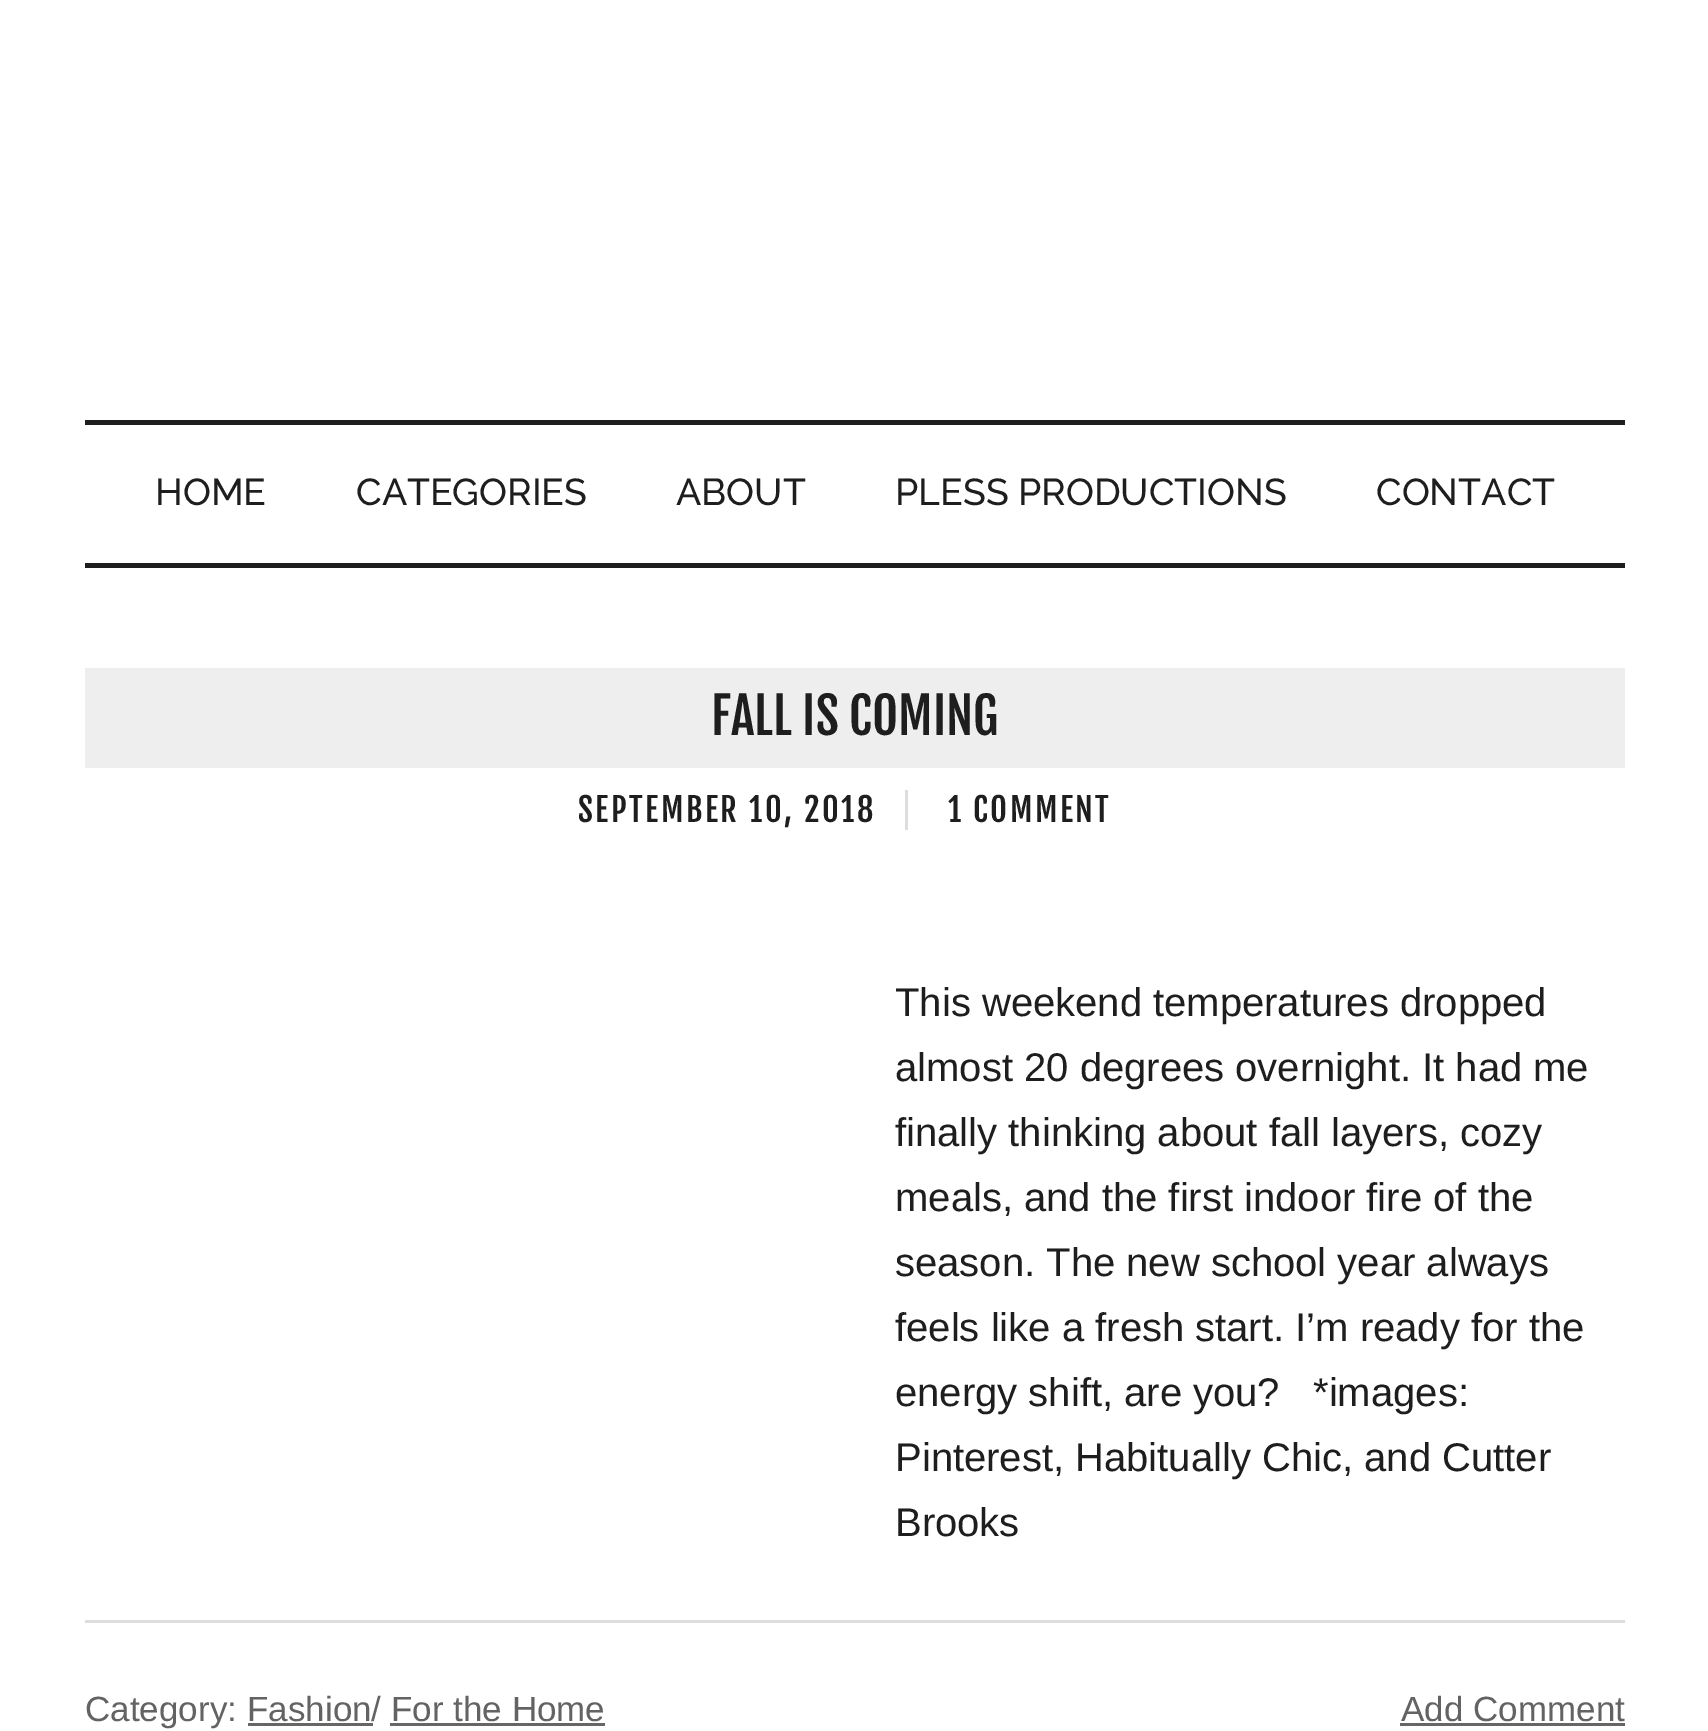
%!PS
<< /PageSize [1708 1731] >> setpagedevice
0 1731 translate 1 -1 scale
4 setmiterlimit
1 setgray
0 0 1708 1731 rectfill
0.118 setgray
85 420 1540 5 rectfill
85 563 1540 5 rectfill
/Raleway-Medium [37.4 0 0 -37.4 0 0] selectfont
155 505 moveto (HOME) show
356 505 moveto (CATEGORIES) show
676 505 moveto (ABOUT) show
895 505 moveto (PLESS PRODUCTIONS) show
1376 505 moveto (CONTACT) show
0.933 setgray
85 668 1540 100 rectfill
/FjallaOne-Regular [50 0 0 -50 0 0] selectfont
0.118 setgray
711 735 moveto (FALL IS COMING) show
/FjallaOne-Regular [32.5 0 0 -32.5 0 0] selectfont
578 822 moveto 2.5 0 (SEPTEMBER 10, 2018) ashow
948 822 moveto 2.5 0 (1 COMMENT) ashow
0.867 setgray
905 790 3 40 rectfill
/LiberationSans-Regular [40 0 0 -40 0 0] selectfont
0.118 setgray
895 1016 moveto (This weekend temperatures dropped) show
895 1081 moveto (almost 20 degrees overnight. It had me) show
895 1146 moveto (finally thinking about fall layers, cozy) show
895 1211 moveto (meals, and the first indoor fire of the) show
895 1276 moveto (season. The new school year always) show
895 1341 moveto (feels like a fresh start. I’m ready for the) show
895 1406 moveto (energy shift, are you?   *images:) show
895 1471 moveto (Pinterest, Habitually Chic, and Cutter) show
895 1536 moveto (Brooks) show
0.867 setgray
85 1620 1540 3 rectfill
/LiberationSans-Regular [35 0 0 -35 0 0] selectfont
0.388 setgray
85 1721 moveto (Category:) show
247 1721 moveto (Fashion) show
0.4 setgray
248 1723 125 3 rectfill
0.388 setgray
371 1721 moveto (/) show
391 1721 moveto (For the Home) show
0.4 setgray
390 1723 215 3 rectfill
0.388 setgray
1401 1721 moveto (Add Comment) show
0.4 setgray
1400 1723 225 3 rectfill
showpage
